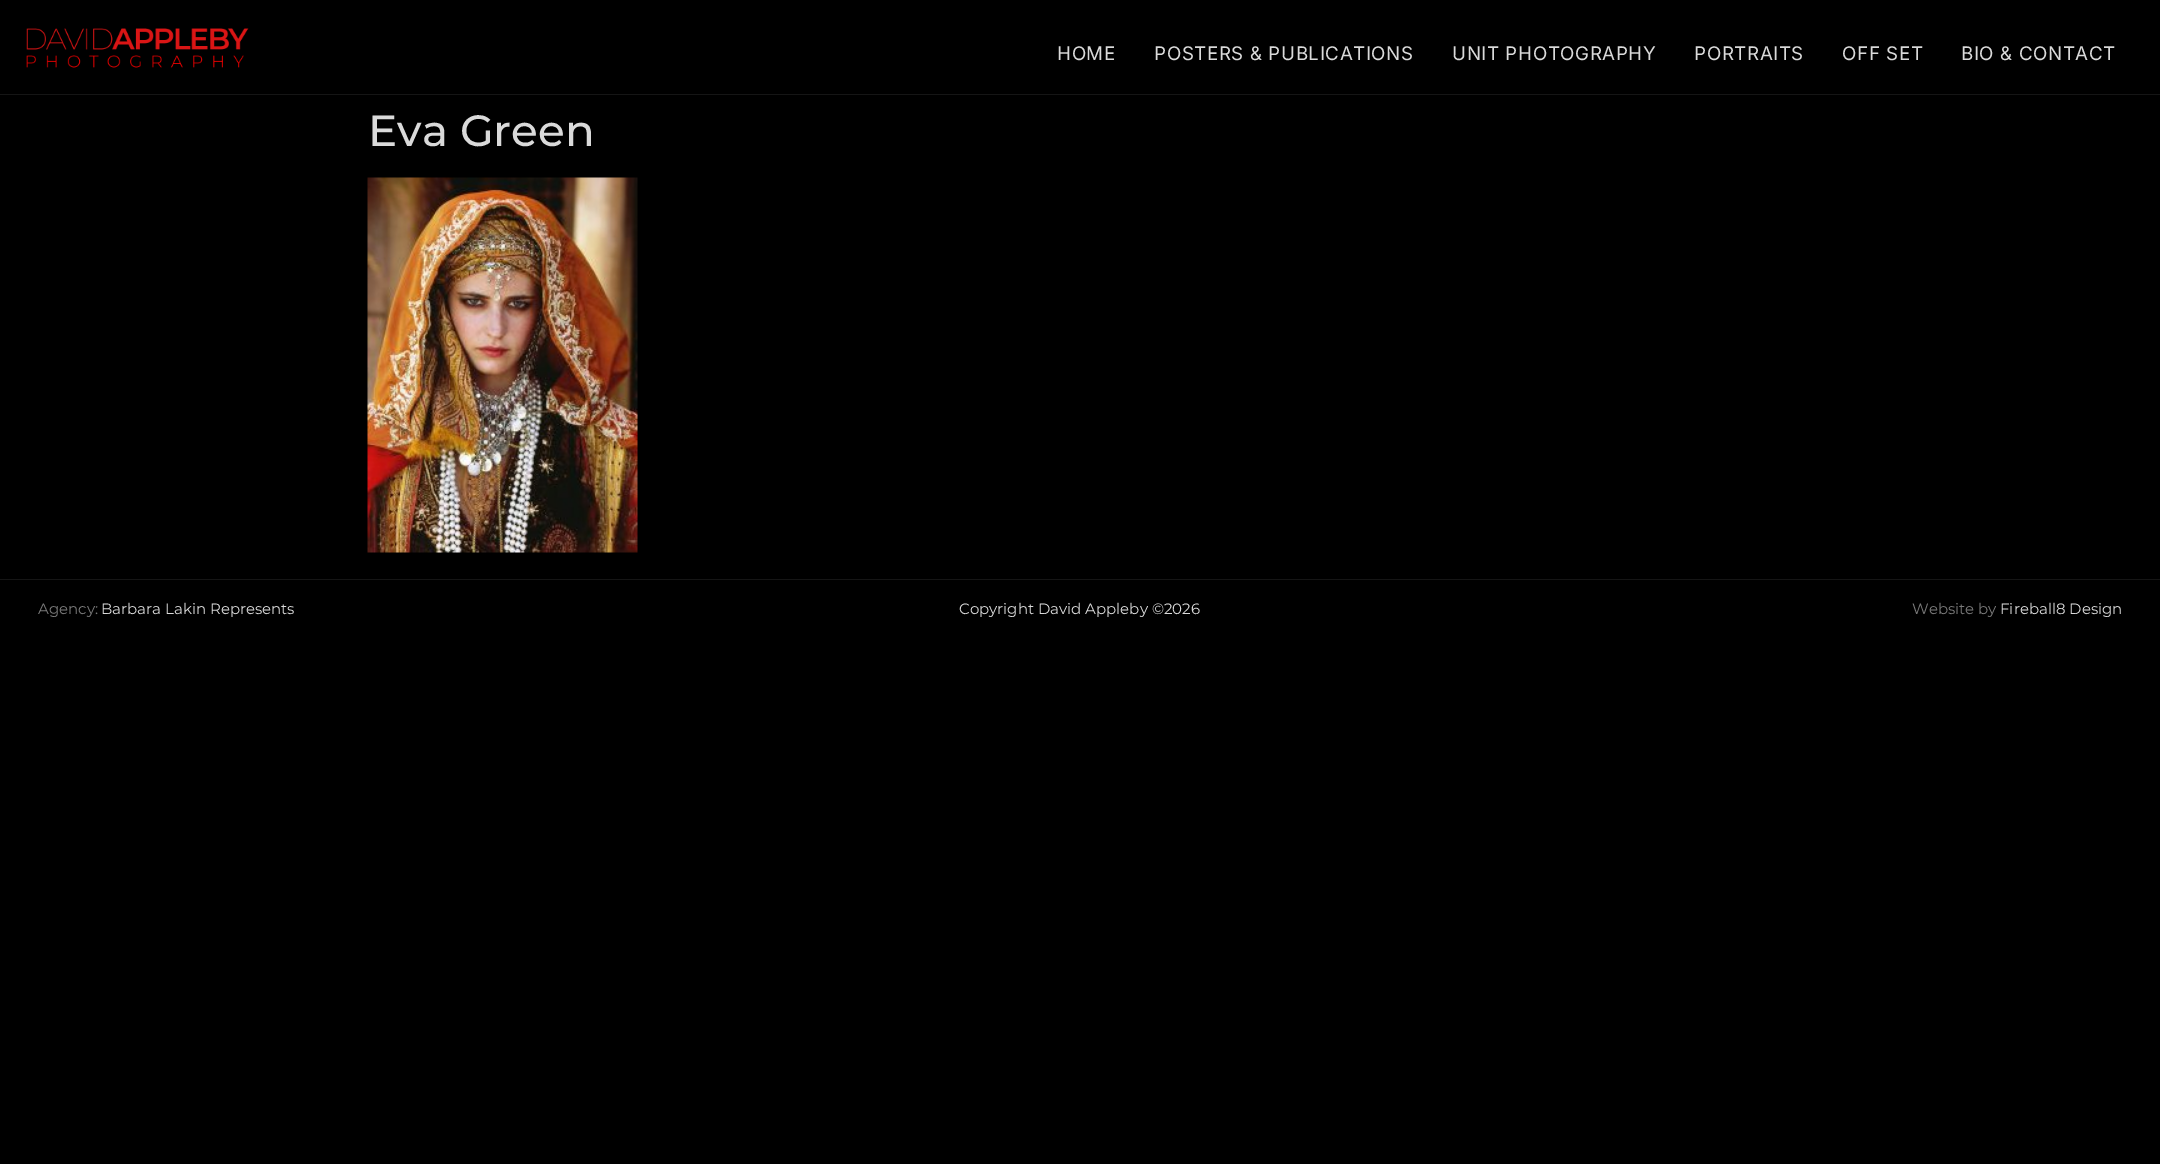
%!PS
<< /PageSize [2160 1164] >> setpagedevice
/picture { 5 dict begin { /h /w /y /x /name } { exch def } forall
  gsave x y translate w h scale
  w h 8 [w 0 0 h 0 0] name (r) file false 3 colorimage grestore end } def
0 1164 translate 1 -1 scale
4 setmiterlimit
0 setgray
0 0 2160 1164 rectfill
0.082 setgray
0 94 2160 1 rectfill
(img1.rgb) 26 28 223 40 picture
/Inter-Regular [18.75 0 0 -18.75 0 0] selectfont
0.855 setgray
1057 60 moveto 0.6 0 (HOME) ashow
1154 60 moveto 0.6 0 (POSTERS & PUBLICATIONS) ashow
1452 60 moveto 0.6 0 (UNIT PHOTOGRAPHY) ashow
1694 60 moveto 0.6 0 (PORTRAITS) ashow
1842 60 moveto 0.6 0 (OFF SET) ashow
1961 60 moveto 0.6 0 (BIO & CONTACT) ashow
/Montserrat-Medium [43.75 0 0 -43.75 0 0] selectfont
368 146 moveto (Eva Green) show
(img2.rgb) 367 177 271 376 picture
0.082 setgray
0 579 2160 1 rectfill
/Montserrat-Regular [15 0 0 -15 0 0] selectfont
0.478 setgray
38 614 moveto (Agency:) show
0.855 setgray
101 614 moveto (Barbara Lakin Represents) show
959 614 moveto (Copyright David Appleby ©2026) show
0.478 setgray
1912 614 moveto (Website by) show
0.855 setgray
2000 614 moveto (Fireball8 Design) show
showpage
